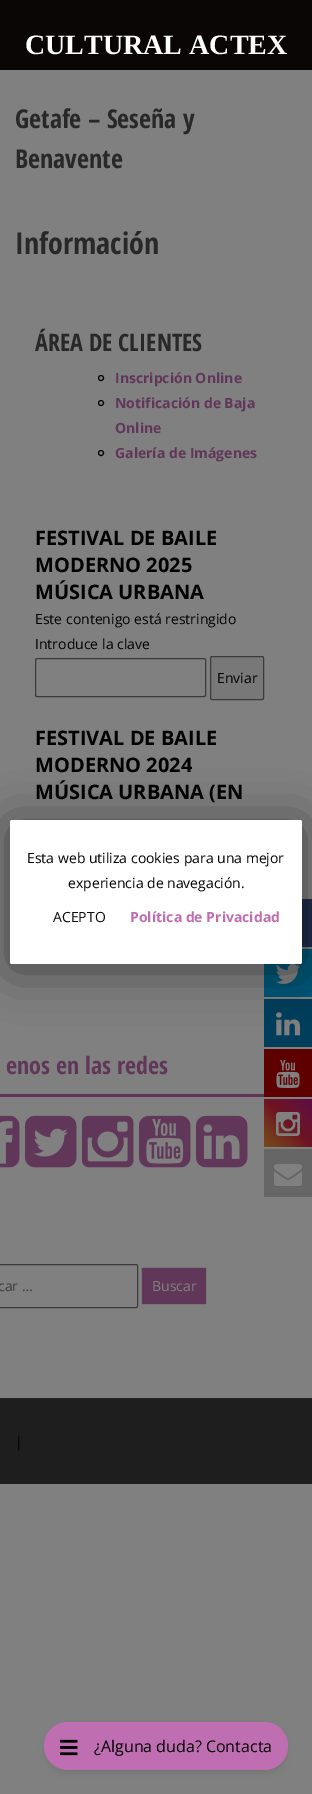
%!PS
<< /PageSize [312 1794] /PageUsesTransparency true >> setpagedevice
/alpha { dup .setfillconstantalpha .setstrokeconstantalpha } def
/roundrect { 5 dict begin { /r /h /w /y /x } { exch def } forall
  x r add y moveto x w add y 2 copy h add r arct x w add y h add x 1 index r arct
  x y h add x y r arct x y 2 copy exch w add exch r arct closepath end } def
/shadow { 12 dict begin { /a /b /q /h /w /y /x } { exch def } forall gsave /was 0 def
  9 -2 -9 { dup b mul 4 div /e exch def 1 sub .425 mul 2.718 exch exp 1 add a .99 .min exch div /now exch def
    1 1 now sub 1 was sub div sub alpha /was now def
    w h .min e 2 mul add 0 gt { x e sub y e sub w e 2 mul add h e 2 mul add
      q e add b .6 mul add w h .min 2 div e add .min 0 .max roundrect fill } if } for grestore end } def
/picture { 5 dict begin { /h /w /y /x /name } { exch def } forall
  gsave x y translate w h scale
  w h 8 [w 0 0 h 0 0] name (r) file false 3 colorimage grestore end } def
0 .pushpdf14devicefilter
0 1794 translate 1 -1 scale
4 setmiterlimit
0.502 setgray
0 0 312 1794 rectfill
0.039 0.02 0.02 setrgbcolor
0 0 312 70 rectfill
/LiberationSerif-Bold [28 0 0 -28 0 0] selectfont
1 setgray
25 54 moveto (CULTURAL ACTEX) show
/OpenSansCondensed-Bold [26 0 0 -26 0 0] selectfont
0.157 setgray
15 128 moveto (Getafe – Seseña y) show
15 168 moveto (Benavente) show
/OpenSansCondensed-Bold [30 0 0 -30 0 0] selectfont
15 254 moveto (Información) show
/OpenSansCondensed-Bold [24 0 0 -24 0 0] selectfont
35 351 moveto (ÁREA DE CLIENTES) show
0 setgray
newpath 101 378 2.5 0 360 arc closepath stroke
/OpenSans-Bold [14 0 0 -14 0 0] selectfont
0.376 0.216 0.349 setrgbcolor
115 383 moveto (Inscripción Online) show
0 setgray
newpath 101 403 2.5 0 360 arc closepath stroke
0.376 0.216 0.349 setrgbcolor
115 408 moveto (Notificación de Baja) show
115 433 moveto (Online) show
0 setgray
newpath 101 453 2.5 0 360 arc closepath stroke
0.376 0.216 0.349 setrgbcolor
115 458 moveto (Galería de Imágenes) show
/OpenSans-Bold [20 0 0 -20 0 0] selectfont
0 setgray
35 545 moveto (FESTIVAL DE BAILE) show
35 572 moveto (MODERNO 2025) show
35 599 moveto (MÚSICA URBANA) show
/OpenSans-Regular [14 0 0 -14 0 0] selectfont
35 624 moveto (Este contenigo está restringido) show
35 649 moveto (Introduce la clave) show
0.231 setgray
35.5 658.5 170 38 1.5 roundrect stroke
0.471 setgray
210.5 656.5 53 43 1.5 roundrect gsave fill grestore
0.231 setgray
stroke
0 setgray
217 683 moveto (Enviar) show
/OpenSans-Bold [20 0 0 -20 0 0] selectfont
35 745 moveto (FESTIVAL DE BAILE) show
35 772 moveto (MODERNO 2024) show
35 799 moveto (MÚSICA URBANA \(EN) show
0.376 0.216 0.349 setrgbcolor
0 1094 267 3 rectfill
/OpenSansCondensed-Bold [24 0 0 -24 0 0] selectfont
6 1074 moveto (enos en las redes) show
(img1.rgb) 0 1115 20 53 picture
(img2.rgb) 25 1115 52 53 picture
(img3.rgb) 82 1115 52 53 picture
(img4.rgb) 139 1115 52 53 picture
(img5.rgb) 196 1115 52 53 picture
0.231 setgray
-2.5 1264.5 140 43 1.5 roundrect stroke
/OpenSans-Regular [14 0 0 -14 0 0] selectfont
-2 1291 moveto (car …) show
0.341 setgray
142 1268 64 36 0 0.5 1 shadow
0.376 0.216 0.349 setrgbcolor
142 1268 64 36 rectfill
0.502 setgray
152 1291 moveto (Buscar) show
0.118 setgray
0 1399 312 85 rectfill
0.145 setgray
0 1398 312 1 rectfill
0 setgray
15 1447 moveto (|) show
0.118 0.176 0.298 setrgbcolor
302 899 10 48 rectfill
0 0.337 0.467 setrgbcolor
264 949 48 48 rectfill
(img6.rgb) 275 964 26 20 picture
0 0.243 0.357 setrgbcolor
264 999 48 48 rectfill
(img7.rgb) 276 1012 24 24 picture
0 setgray
10 825 292 144 2 25 0.5 shadow
1 setgray
10 820 292 144 2 roundrect fill
0 setgray
27 863 moveto (Esta web utiliza cookies para una mejor) show
68 888 moveto (experiencia de navegación.) show
0.039 setgray
53 922 moveto (ACEPTO) show
/OpenSans-Bold [14 0 0 -14 0 0] selectfont
0.749 0.431 0.694 setrgbcolor
130 922 moveto (Política de Privacidad) show
0.369 0 0 setrgbcolor
264 1049 48 48 rectfill
(img8.rgb) 276 1060 24 28 picture
gsave newpath 264 1099 moveto 312 1099 lineto 312 1147 lineto 264 1147 lineto closepath clip newpath
<< /ShadingType 2 /ColorSpace /DeviceRGB /Coords [264 1147 312 1099] /Extend [true true] /Function << /FunctionType 3 /Domain [0 1] /Functions [<< /FunctionType 2 /Domain [0 1] /C0 [0.471 0.29 0.102] /C1 [0.451 0.204 0.118] /N 1 >> << /FunctionType 2 /Domain [0 1] /C0 [0.451 0.204 0.118] /C1 [0.431 0.078 0.133] /N 1 >> << /FunctionType 2 /Domain [0 1] /C0 [0.431 0.078 0.133] /C1 [0.4 0.071 0.2] /N 1 >> << /FunctionType 2 /Domain [0 1] /C0 [0.4 0.071 0.2] /C1 [0.369 0.047 0.267] /N 1 >>] /Bounds [0.25 0.5 0.75] /Encode [0 1 0 1 0 1 0 1] >> >> shfill grestore
(img9.rgb) 276 1112 24 24 picture
0.4 setgray
264 1149 48 48 rectfill
(img10.rgb) 274 1164 28 22 picture
0 setgray
45 1727 242 46 23 3 0.1 shadow
0.749 0.431 0.694 setrgbcolor
44 1722 244 48 24 roundrect fill
(img11.rgb) 60 1739 18 17 picture
/OpenSans-Regular [16 0 0 -16 0 0] selectfont
0 setgray
94 1752 moveto (¿Alguna duda? Contacta) show
.poppdf14devicefilter showpage
